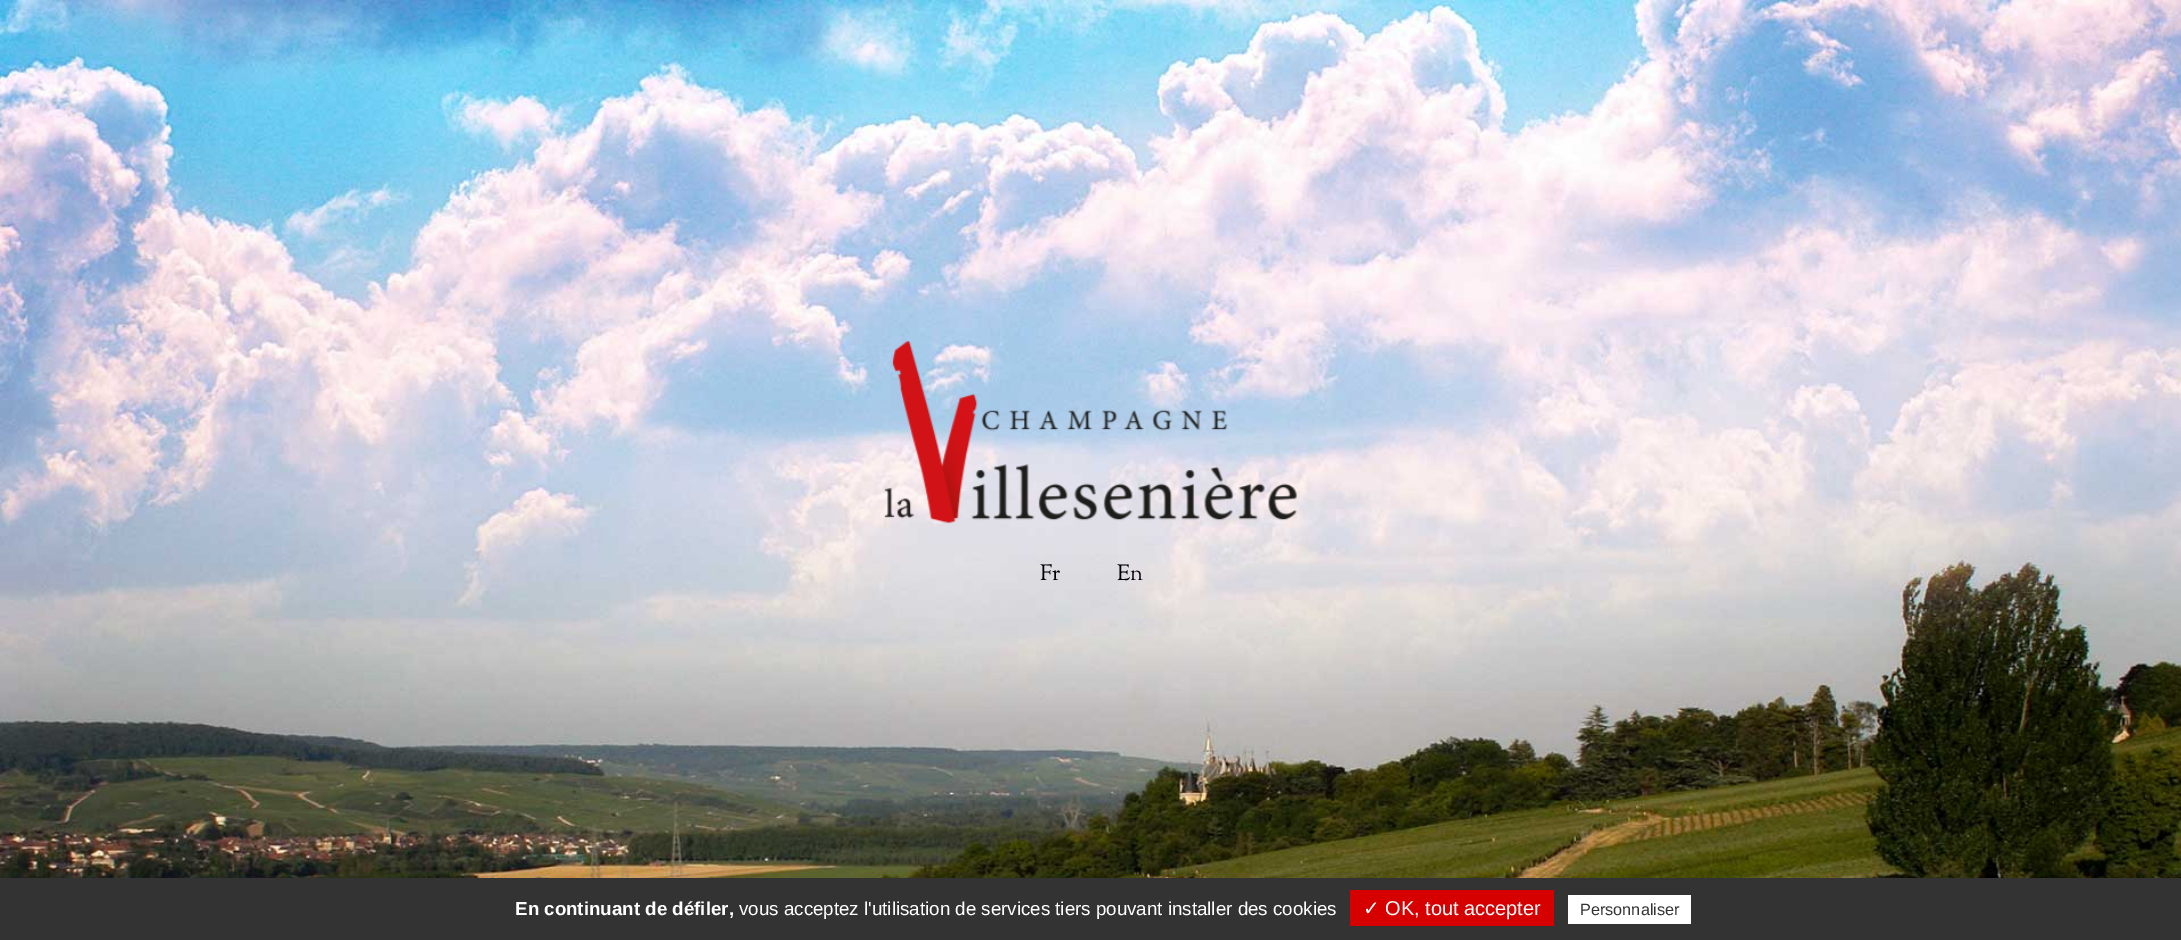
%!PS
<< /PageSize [2181 940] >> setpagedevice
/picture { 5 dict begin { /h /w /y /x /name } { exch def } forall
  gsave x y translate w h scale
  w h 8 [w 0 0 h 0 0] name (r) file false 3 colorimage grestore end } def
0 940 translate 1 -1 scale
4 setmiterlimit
1 setgray
0 0 2181 940 rectfill
(img1.rgb) 0 0 2181 878 picture
(img2.rgb) 884 341 413 183 picture
/SortsMillGoudy-Regular [22 0 0 -22 0 0] selectfont
0 setgray
1040 580 moveto (Fr) show
1117 580 moveto (En) show
0.2 setgray
0 878 2181 62 rectfill
/LiberationSans-Bold [18.75 0 0 -18.75 0 0] selectfont
1 setgray
515 915 moveto (En continuant de défiler,) show
/LiberationSans-Regular [18.75 0 0 -18.75 0 0] selectfont
739 915 moveto (vous acceptez l'utilisation de services tiers pouvant installer des cookies) show
0.839 0 0.004 setrgbcolor
1350 890 204 36 rectfill
/DejaVuSans-Regular [20 0 0 -20 0 0] selectfont
1 setgray
1363 915 moveto (✓) show
/LiberationSans-Regular [20 0 0 -20 0 0] selectfont
1385 915 moveto (OK, tout accepter) show
1568 895 123 29 rectfill
/LiberationSans-Regular [16.25 0 0 -16.25 0 0] selectfont
0.2 setgray
1580 915 moveto (Personnaliser) show
showpage
